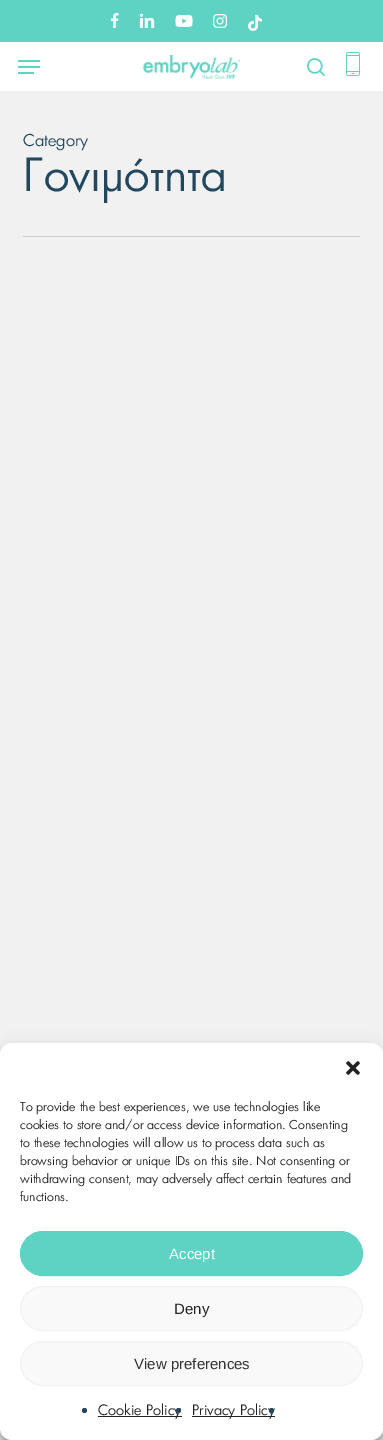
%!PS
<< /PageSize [383 1440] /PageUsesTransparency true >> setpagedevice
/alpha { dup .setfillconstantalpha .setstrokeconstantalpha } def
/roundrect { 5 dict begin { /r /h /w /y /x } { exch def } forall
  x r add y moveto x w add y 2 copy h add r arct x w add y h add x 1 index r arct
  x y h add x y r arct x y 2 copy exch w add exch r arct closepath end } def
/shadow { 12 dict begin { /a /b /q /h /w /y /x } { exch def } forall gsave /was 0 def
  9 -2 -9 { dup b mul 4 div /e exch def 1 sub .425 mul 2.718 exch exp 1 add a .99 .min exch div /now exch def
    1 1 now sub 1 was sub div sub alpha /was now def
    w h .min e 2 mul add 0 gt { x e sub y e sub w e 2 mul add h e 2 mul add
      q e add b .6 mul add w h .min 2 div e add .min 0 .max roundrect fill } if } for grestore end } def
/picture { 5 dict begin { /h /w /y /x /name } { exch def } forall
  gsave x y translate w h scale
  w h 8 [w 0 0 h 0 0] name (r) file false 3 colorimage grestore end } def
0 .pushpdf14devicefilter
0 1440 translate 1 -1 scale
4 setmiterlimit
0.945 setgray
0 0 383 1440 rectfill
0.369 0.824 0.765 setrgbcolor
0 0 383 42 rectfill
(img1.rgb) 110 13 9 15 picture
(img2.rgb) 139 13 16 15 picture
(img3.rgb) 175 15 18 12 picture
(img4.rgb) 213 14 15 14 picture
(img5.rgb) 248 15 14 16 picture
1 setgray
0 42 383 49 rectfill
0.369 0.824 0.765 setrgbcolor
18 60 22 2 rectfill
18 72 16 2 rectfill
18 66 22 2 rectfill
(img6.rgb) 307 58 18 18 picture
(img7.rgb) 346 52 14 24 picture
(img8.rgb) 142 55 99 24 picture
0.804 setgray
23 236 337 1 rectfill
/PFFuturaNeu-Regular [16 0 0 -16 0 0] selectfont
0.137 0.282 0.369 setrgbcolor
23 146 moveto (Category) show
/PFFuturaNeu-Regular [44.5 0 0 -44.5 0 0] selectfont
23 191 moveto (Γονιμότητα) show
0 setgray
0 1049 383 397 12 3 0.23 shadow
0 1053 383 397 12 10 0.19 shadow
1 setgray
0 1043 383 397 12 roundrect fill
(img9.rgb) 346 1061 14 14 picture
/PFFuturaNeu-Regular [12 0 0 -12 0 0] selectfont
0.133 setgray
20 1111 moveto (To provide the best experiences, we use technologies like) show
20 1129 moveto (cookies to store and/or access device information. Consenting) show
20 1147 moveto (to these technologies will allow us to process data such as) show
20 1165 moveto (browsing behavior or unique IDs on this site. Not consenting or) show
20 1183 moveto (withdrawing consent, may adversely affect certain features and) show
20 1201 moveto (functions.) show
0.369 0.824 0.765 setrgbcolor
20.5 1231.5 342 44 22 roundrect gsave fill grestore
stroke
/LiberationSans-Regular [15 0 0 -15 0 0] selectfont
1 setgray
169 1259 moveto (Accept) show
0.976 setgray
20.5 1286.5 342 44 22 roundrect gsave fill grestore
0.949 setgray
stroke
0.133 setgray
174 1314 moveto (Deny) show
0.976 setgray
20.5 1341.5 342 44 22 roundrect gsave fill grestore
0.949 setgray
stroke
0.2 setgray
134 1369 moveto (View preferences) show
0.137 0.282 0.369 setrgbcolor
newpath 84.5 1410.5 2.5 0 360 arc closepath fill
0.133 setgray
98 1416 84 1 rectfill
/PFFuturaNeu-Regular [14 0 0 -14 0 0] selectfont
98 1415 moveto (Cookie Policy) show
0.137 0.282 0.369 setrgbcolor
newpath 178.5 1410.5 2.5 0 360 arc closepath fill
0.133 setgray
192 1416 83 1 rectfill
192 1415 moveto (Privacy Policy) show
0.137 0.282 0.369 setrgbcolor
newpath 271.5 1410.5 2.5 0 360 arc closepath fill
.poppdf14devicefilter showpage
